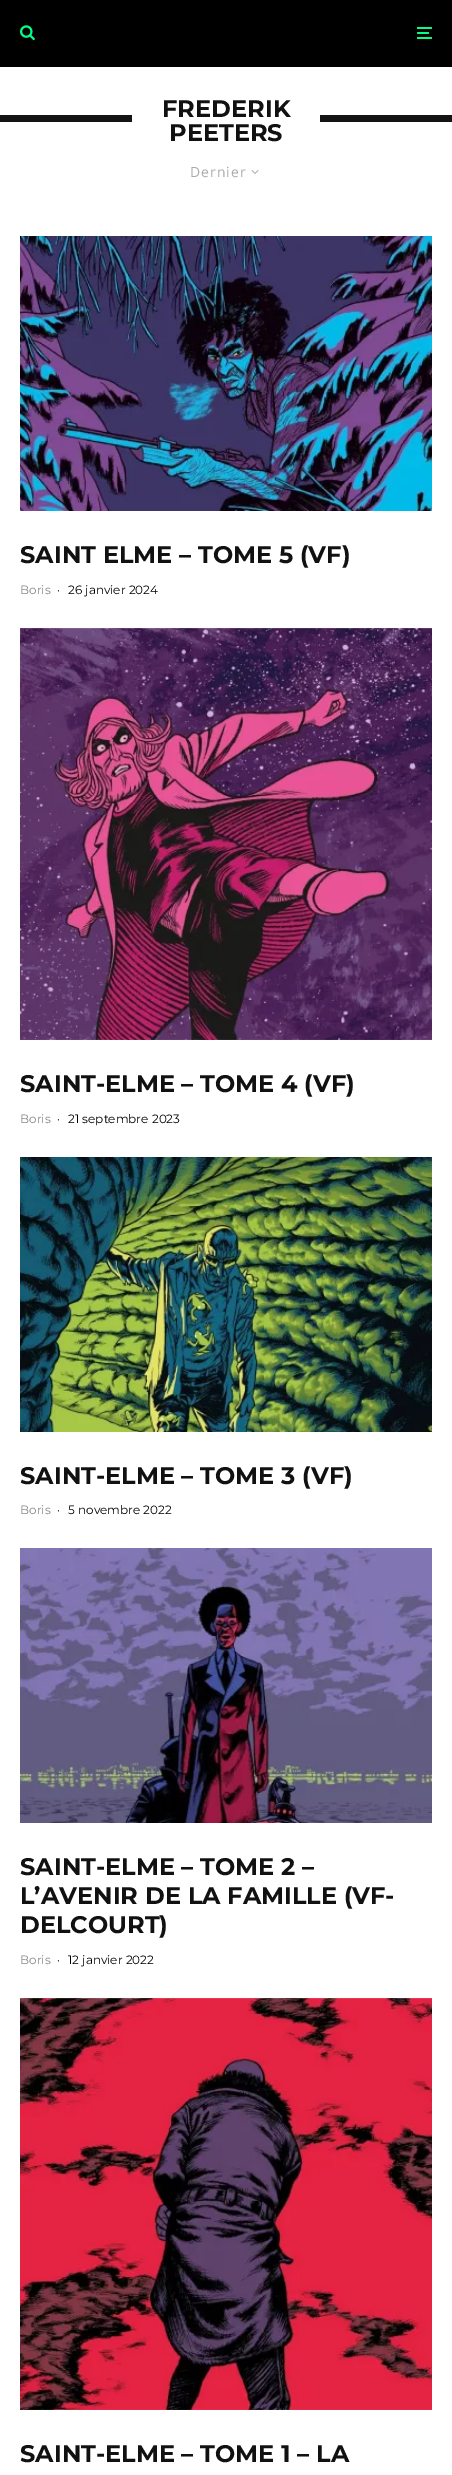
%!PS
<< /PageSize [452 2475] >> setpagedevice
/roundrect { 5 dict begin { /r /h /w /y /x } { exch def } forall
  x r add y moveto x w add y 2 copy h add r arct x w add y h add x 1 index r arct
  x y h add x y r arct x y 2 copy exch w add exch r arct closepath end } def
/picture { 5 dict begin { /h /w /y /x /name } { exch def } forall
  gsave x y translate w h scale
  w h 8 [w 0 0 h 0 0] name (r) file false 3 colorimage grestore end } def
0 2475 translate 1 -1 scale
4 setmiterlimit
1 setgray
0 0 452 2475 rectfill
0 setgray
0 0 452 67 rectfill
(img1.rgb) 20 25 15 16 picture
0.02 1 0.525 setrgbcolor
417 32 12 2 1 roundrect fill
417 27 15 2 1 roundrect fill
417 37 15 2 1 roundrect fill
/Montserrat-Bold [24 0 0 -24 0 0] selectfont
0.067 setgray
162 117 moveto (FREDERIK) show
0.078 setgray
0 115 132 7 rectfill
320 115 132 7 rectfill
0.067 setgray
169 141 moveto (PEETERS) show
/OpenSans-Regular [14 0 0 -14 0 0] selectfont
0.667 setgray
190 177 moveto 1 0 (Dernier) ashow
(img2.rgb) 251 170 8 4 picture
(img3.rgb) 20 236 412 275 picture
/Montserrat-Bold [24 0 0 -24 0 0] selectfont
0.067 setgray
20 563 moveto (SAINT ELME – TOME 5 \(VF\)) show
/Montserrat-Regular [12 0 0 -12 0 0] selectfont
0.533 setgray
20 594 moveto (Boris) show
0 setgray
57 594 moveto (·) show
68 594 moveto (26 janvier 2024) show
(img4.rgb) 20 628 412 412 picture
/Montserrat-Bold [24 0 0 -24 0 0] selectfont
0.067 setgray
20 1092 moveto (SAINT-ELME – TOME 4 \(VF\)) show
/Montserrat-Regular [12 0 0 -12 0 0] selectfont
0.533 setgray
20 1123 moveto (Boris) show
0 setgray
57 1123 moveto (·) show
68 1123 moveto (21 septembre 2023) show
(img5.rgb) 20 1157 412 275 picture
/Montserrat-Bold [24 0 0 -24 0 0] selectfont
0.067 setgray
20 1484 moveto (SAINT-ELME – TOME 3 \(VF\)) show
/Montserrat-Regular [12 0 0 -12 0 0] selectfont
0.533 setgray
20 1514 moveto (Boris) show
0 setgray
57 1514 moveto (·) show
68 1514 moveto (5 novembre 2022) show
(img6.rgb) 20 1548 412 275 picture
/Montserrat-Bold [24 0 0 -24 0 0] selectfont
0.067 setgray
20 1875 moveto (SAINT-ELME – TOME 2 –) show
20 1904 moveto (L’AVENIR DE LA FAMILLE \(VF-) show
20 1933 moveto (DELCOURT\)) show
/Montserrat-Regular [12 0 0 -12 0 0] selectfont
0.533 setgray
20 1964 moveto (Boris) show
0 setgray
57 1964 moveto (·) show
68 1964 moveto (12 janvier 2022) show
(img7.rgb) 20 1998 412 412 picture
/Montserrat-Bold [24 0 0 -24 0 0] selectfont
0.067 setgray
20 2462 moveto (SAINT-ELME – TOME 1 – LA) show
showpage
